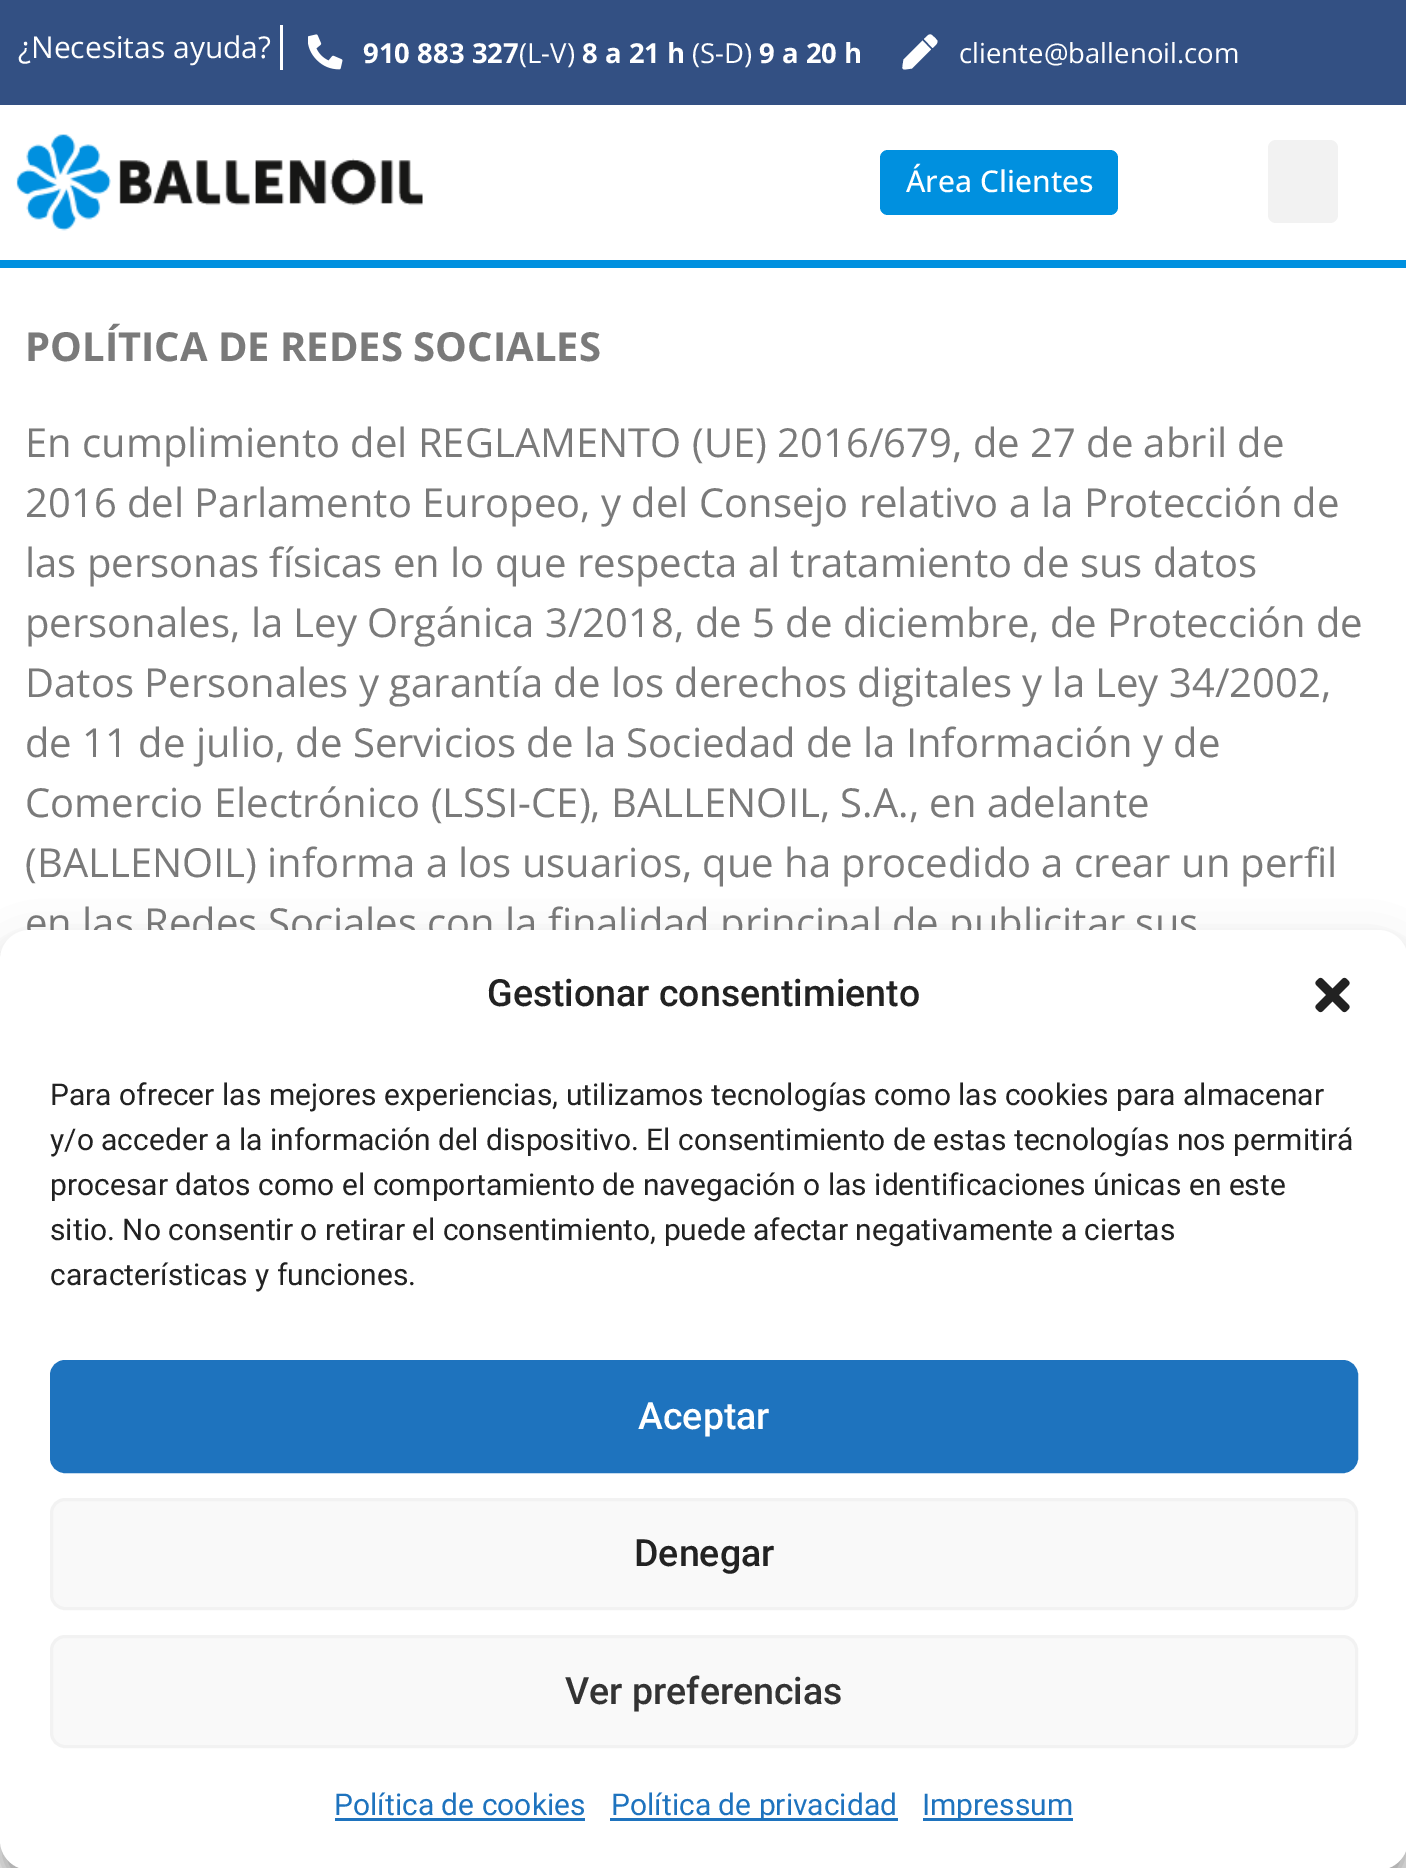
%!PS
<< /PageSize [1406 1868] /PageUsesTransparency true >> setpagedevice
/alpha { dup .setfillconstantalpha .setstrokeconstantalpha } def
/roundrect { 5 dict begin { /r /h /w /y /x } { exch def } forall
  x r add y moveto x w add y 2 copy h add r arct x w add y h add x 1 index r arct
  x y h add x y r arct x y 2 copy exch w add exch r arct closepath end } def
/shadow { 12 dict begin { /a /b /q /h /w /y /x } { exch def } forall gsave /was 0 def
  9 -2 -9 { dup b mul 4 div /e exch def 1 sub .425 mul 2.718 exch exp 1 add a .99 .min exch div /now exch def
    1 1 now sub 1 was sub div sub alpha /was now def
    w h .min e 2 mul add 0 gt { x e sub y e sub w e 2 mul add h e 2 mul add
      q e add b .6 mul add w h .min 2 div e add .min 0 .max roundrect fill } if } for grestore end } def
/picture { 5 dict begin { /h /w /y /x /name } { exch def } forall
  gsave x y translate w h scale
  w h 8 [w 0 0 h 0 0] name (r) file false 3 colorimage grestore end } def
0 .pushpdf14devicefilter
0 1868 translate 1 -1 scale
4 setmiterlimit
1 setgray
0 0 1406 1868 rectfill
0.2 0.314 0.514 setrgbcolor
0 0 1406 105 rectfill
1 setgray
280 25 3 45 rectfill
/OpenSans-Regular [30 0 0 -30 0 0] selectfont
18 58 moveto (¿Necesitas ayuda?) show
(img1.rgb) 308 34 35 36 picture
/OpenSans-Bold [27.5 0 0 -27.5 0 0] selectfont
363 63 moveto (910 883 327) show
/OpenSans-Regular [27.5 0 0 -27.5 0 0] selectfont
519 63 moveto (\(L-V\)) show
/OpenSans-Bold [27.5 0 0 -27.5 0 0] selectfont
582 63 moveto (8 a 21 h) show
/OpenSans-Regular [27.5 0 0 -27.5 0 0] selectfont
692 63 moveto (\(S-D\)) show
/OpenSans-Bold [27.5 0 0 -27.5 0 0] selectfont
759 63 moveto (9 a 20 h) show
newpath 922.5 40.5 moveto 931 49.5 lineto 912 68.5 lineto 900.5 70 902 71 903.5 59.5 curveto closepath 936.5 39.5 moveto 939.5 42.5 934.5 46 932.5 48 curveto 924 39 lineto 930.5 32.5 930 33 936.5 39.5 curveto closepath fill
/OpenSans-Regular [27.5 0 0 -27.5 0 0] selectfont
959 63 moveto (cliente@ballenoil.com) show
0 0.565 0.875 setrgbcolor
0 260 1406 8 rectfill
(img2.rgb) 16 134 407 97 picture
880 150 238 65 8 roundrect fill
/OpenSans-Medium [30 0 0 -30 0 0] selectfont
1 setgray
906 192 moveto (Área Clientes) show
0.949 setgray
1268 140 70 83 8 roundrect fill
/OpenSans-Bold [40 0 0 -40 0 0] selectfont
0.478 setgray
25 361 moveto (POLÍTICA DE REDES SOCIALES) show
/OpenSans-Regular [40 0 0 -40 0 0] selectfont
25 457 moveto (En cumplimiento del REGLAMENTO \(UE\) 2016/679, de 27 de abril de) show
25 517 moveto (2016 del Parlamento Europeo, y del Consejo relativo a la Protección de) show
25 577 moveto (las personas físicas en lo que respecta al tratamiento de sus datos) show
25 637 moveto (personales, la Ley Orgánica 3/2018, de 5 de diciembre, de Protección de) show
25 697 moveto (Datos Personales y garantía de los derechos digitales y la Ley 34/2002,) show
25 757 moveto (de 11 de julio, de Servicios de la Sociedad de la Información y de) show
25 817 moveto (Comercio Electrónico \(LSSI-CE\), BALLENOIL, S.A., en adelante) show
25 877 moveto (\(BALLENOIL\) informa a los usuarios, que ha procedido a crear un perfil) show
25 937 moveto (en las Redes Sociales con la finalidad principal de publicitar sus) show
0 setgray
0 945 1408 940 30 7.5 0.23 shadow
0 955 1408 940 30 25 0.19 shadow
1 setgray
0 930 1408 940 30 roundrect fill
/Roboto-Medium [37.5 0 0 -37.5 0 0] selectfont
0.133 setgray
487 1006 moveto (Gestionar consentimiento) show
(img3.rgb) 1315 977 35 36 picture
/Roboto-Regular [30 0 0 -30 0 0] selectfont
50 1105 moveto (Para ofrecer las mejores experiencias, utilizamos tecnologías como las cookies para almacenar) show
50 1150 moveto (y/o acceder a la información del dispositivo. El consentimiento de estas tecnologías nos permitirá) show
50 1195 moveto (procesar datos como el comportamiento de navegación o las identificaciones únicas en este) show
50 1240 moveto (sitio. No consentir o retirar el consentimiento, puede afectar negativamente a ciertas) show
50 1285 moveto (características y funciones.) show
0.118 0.451 0.745 setrgbcolor
51.5 1361.5 1305 110 13.5 roundrect gsave fill grestore
3 setlinewidth
stroke
/Roboto-Medium [37.5 0 0 -37.5 0 0] selectfont
1 setgray
638 1429 moveto (Aceptar) show
0.976 setgray
51.5 1499.5 1305 109 13.5 roundrect gsave fill grestore
0.949 setgray
stroke
0.133 setgray
634 1566 moveto (Denegar) show
0.976 setgray
51.5 1636.5 1305 110 13.5 roundrect gsave fill grestore
0.949 setgray
stroke
0.2 setgray
565 1704 moveto (Ver preferencias) show
/Roboto-Regular [30 0 0 -30 0 0] selectfont
0.118 0.451 0.745 setrgbcolor
334 1815 moveto (Política de cookies) show
335 1818 250 3 rectfill
610 1818 288 3 rectfill
611 1815 moveto (Política de privacidad) show
923 1818 150 3 rectfill
922 1815 moveto (Impressum) show
.poppdf14devicefilter showpage
